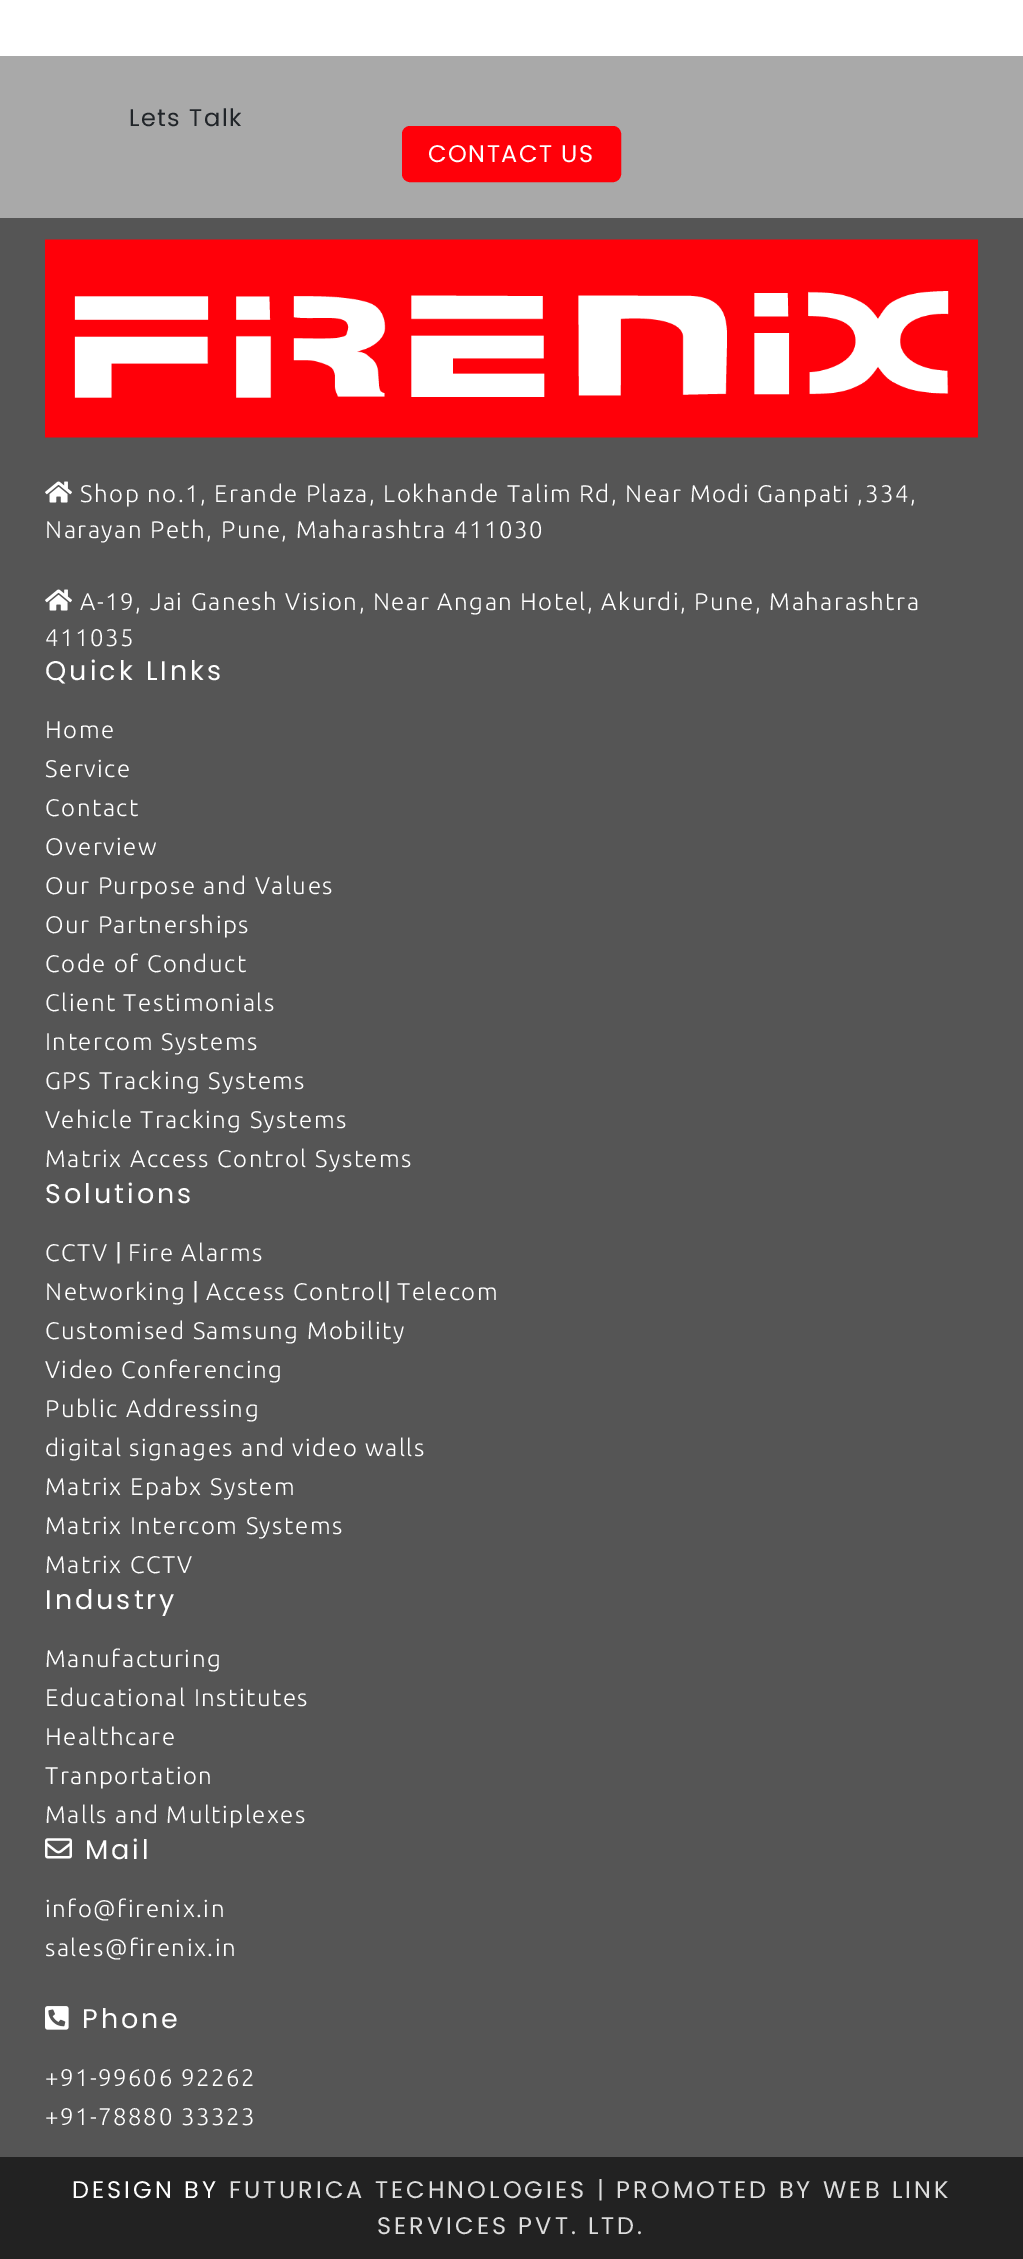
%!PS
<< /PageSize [1023 2259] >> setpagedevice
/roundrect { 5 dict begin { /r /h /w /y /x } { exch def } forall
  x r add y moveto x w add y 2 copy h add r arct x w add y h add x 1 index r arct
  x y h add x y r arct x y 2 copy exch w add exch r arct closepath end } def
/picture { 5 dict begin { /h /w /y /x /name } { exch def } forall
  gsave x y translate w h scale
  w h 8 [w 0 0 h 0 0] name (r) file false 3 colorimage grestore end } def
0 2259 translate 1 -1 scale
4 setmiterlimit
1 setgray
0 0 1023 2259 rectfill
0.663 setgray
0 56 1023 162 rectfill
/Poppins-Regular [24 0 0 -24 0 0] selectfont
0.129 0.145 0.161 setrgbcolor
129 126 moveto 1.5 0 (Lets Talk) ashow
1 0 0.035 setrgbcolor
403.5 127.5 216 53 6.5 roundrect gsave fill grestore
3 setlinewidth
stroke
1 setgray
428 162 moveto 1.5 0 (CONTACT US) ashow
0.333 setgray
0 218 1023 1939 rectfill
(img1.rgb) 45 239 933 199 picture
(img2.rgb) 45 481 27 22 picture
/Ubuntu-Light [24 0 0 -24 0 0] selectfont
1 setgray
80 502 moveto 1.5 0 (Shop no.1, Erande Plaza, Lokhande Talim Rd, Near Modi Ganpati ,334,) ashow
45 538 moveto 1.5 0 (Narayan Peth, Pune, Maharashtra 411030) ashow
(img2.rgb) 45 589 27 22 picture
80 610 moveto 1.5 0 (A-19, Jai Ganesh Vision, Near Angan Hotel, Akurdi, Pune, Maharashtra) ashow
45 646 moveto 1.5 0 (411035) ashow
/Poppins-Regular [27 0 0 -27 0 0] selectfont
45 680 moveto 3 0 (Quick LInks) ashow
/Ubuntu-Light [24 0 0 -24 0 0] selectfont
45 738 moveto 1.5 0 (Home) ashow
45 777 moveto 1.5 0 (Service) ashow
45 816 moveto 1.5 0 (Contact) ashow
45 855 moveto 1.5 0 (Overview) ashow
45 894 moveto 1.5 0 (Our Purpose and Values) ashow
45 933 moveto 1.5 0 (Our Partnerships) ashow
45 972 moveto 1.5 0 (Code of Conduct) ashow
45 1011 moveto 1.5 0 (Client Testimonials) ashow
45 1050 moveto 1.5 0 (Intercom Systems) ashow
45 1089 moveto 1.5 0 (GPS Tracking Systems) ashow
45 1128 moveto 1.5 0 (Vehicle Tracking Systems) ashow
45 1167 moveto 1.5 0 (Matrix Access Control Systems) ashow
/Poppins-Regular [27 0 0 -27 0 0] selectfont
45 1203 moveto 3 0 (Solutions) ashow
/Ubuntu-Light [24 0 0 -24 0 0] selectfont
45 1261 moveto 1.5 0 (CCTV) ashow
/Poppins-Regular [24 0 0 -24 0 0] selectfont
115 1261 moveto (|) show
/Ubuntu-Light [24 0 0 -24 0 0] selectfont
128 1261 moveto 1.5 0 (Fire Alarms) ashow
45 1300 moveto 1.5 0 (Networking) ashow
/Poppins-Regular [24 0 0 -24 0 0] selectfont
192 1300 moveto (|) show
/Ubuntu-Light [24 0 0 -24 0 0] selectfont
206 1300 moveto 1.5 0 (Access Control) ashow
/Poppins-Regular [24 0 0 -24 0 0] selectfont
384 1300 moveto (|) show
/Ubuntu-Light [24 0 0 -24 0 0] selectfont
397 1300 moveto 1.5 0 (Telecom) ashow
45 1339 moveto 1.5 0 (Customised Samsung Mobility) ashow
45 1378 moveto 1.5 0 (Video Conferencing) ashow
45 1417 moveto 1.5 0 (Public Addressing) ashow
45 1456 moveto 1.5 0 (digital signages and video walls) ashow
45 1495 moveto 1.5 0 (Matrix Epabx System) ashow
45 1534 moveto 1.5 0 (Matrix Intercom Systems) ashow
45 1573 moveto 1.5 0 (Matrix CCTV) ashow
/Poppins-Regular [27 0 0 -27 0 0] selectfont
45 1609 moveto 3 0 (Industry) ashow
/Ubuntu-Light [24 0 0 -24 0 0] selectfont
45 1667 moveto 1.5 0 (Manufacturing) ashow
45 1706 moveto 1.5 0 (Educational Institutes) ashow
45 1745 moveto 1.5 0 (Healthcare) ashow
45 1784 moveto 1.5 0 (Tranportation) ashow
45 1823 moveto 1.5 0 (Malls and Multiplexes) ashow
(img3.rgb) 45 1838 27 21 picture
/Poppins-Regular [27 0 0 -27 0 0] selectfont
85 1859 moveto 3 0 (Mail) ashow
/Ubuntu-Light [24 0 0 -24 0 0] selectfont
45 1917 moveto 1.5 0 (info@firenix.in) ashow
45 1956 moveto 1.5 0 (sales@firenix.in) ashow
(img4.rgb) 45 2006 24 24 picture
/Poppins-Regular [27 0 0 -27 0 0] selectfont
82 2028 moveto 3 0 (Phone) ashow
/Ubuntu-Light [24 0 0 -24 0 0] selectfont
45 2086 moveto 1.5 0 (+91-99606 92262) ashow
45 2125 moveto 1.5 0 (+91-78880 33323) ashow
0.133 setgray
0 2157 1023 102 rectfill
/Poppins-Regular [24 0 0 -24 0 0] selectfont
1 setgray
72 2198 moveto 3 0 (DESIGN BY) ashow
0.867 setgray
229 2198 moveto 3 0 (FUTURICA TECHNOLOGIES | PROMOTED BY WEB LINK) ashow
377 2234 moveto 3 0 (SERVICES PVT. LTD.) ashow
showpage
